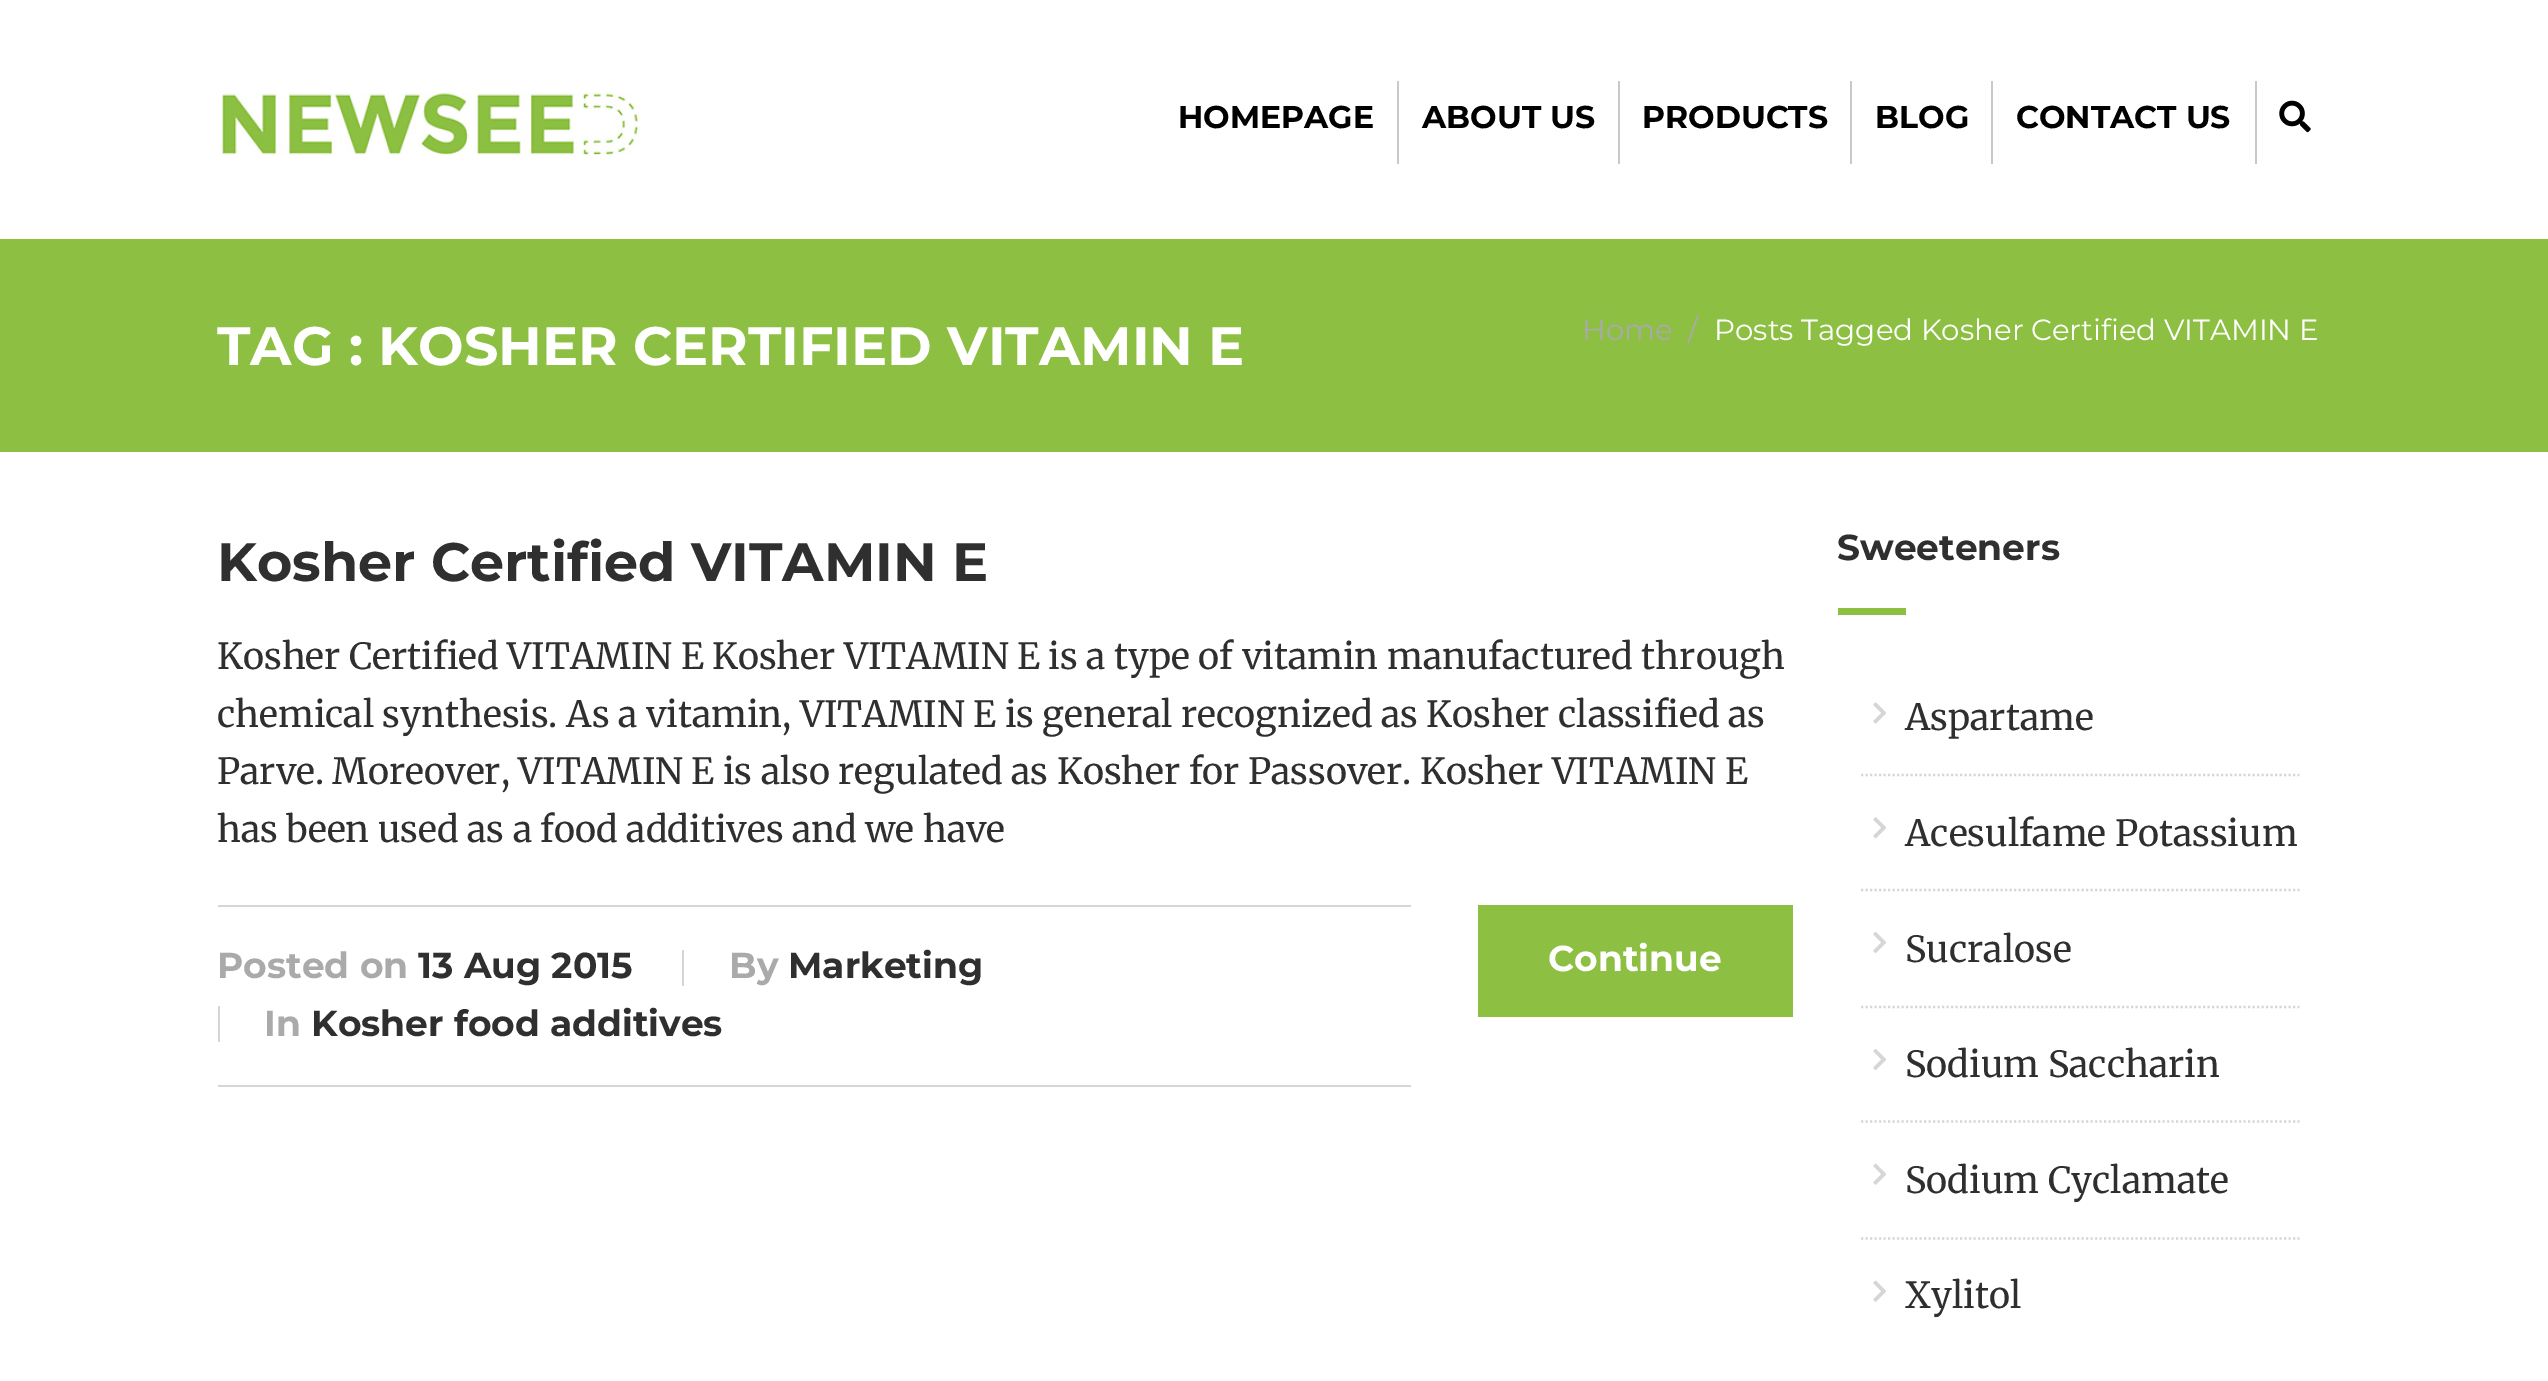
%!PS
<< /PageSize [2548 1381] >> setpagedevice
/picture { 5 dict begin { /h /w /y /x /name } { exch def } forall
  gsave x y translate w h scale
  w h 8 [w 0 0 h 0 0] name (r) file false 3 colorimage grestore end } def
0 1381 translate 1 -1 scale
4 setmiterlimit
1 setgray
0 0 2548 1381 rectfill
(img1.rgb) 221 92 419 63 picture
/Montserrat-Bold [31.5 0 0 -31.5 0 0] selectfont
0 setgray
1178 128 moveto (HOMEPAGE) show
0.788 setgray
1397 81 2 83 rectfill
0 setgray
1422 128 moveto (ABOUT US) show
0.788 setgray
1618 81 2 83 rectfill
0 setgray
1642 128 moveto (PRODUCTS) show
0.788 setgray
1850 81 2 83 rectfill
0 setgray
1875 128 moveto (BLOG) show
0.788 setgray
1991 81 2 83 rectfill
0 setgray
2016 128 moveto (CONTACT US) show
0.788 setgray
2255 81 2 83 rectfill
(img2.rgb) 2279 100 32 33 picture
0.549 0.749 0.259 setrgbcolor
0 239 2548 213 rectfill
/Montserrat-Bold [54 0 0 -54 0 0] selectfont
1 setgray
217 365 moveto (TAG : KOSHER CERTIFIED VITAMIN E) show
/Montserrat-Regular [29.25 0 0 -29.25 0 0] selectfont
0.667 setgray
1582 340 moveto (Home) show
1688 340 moveto (/) show
1 setgray
1714 340 moveto (Posts Tagged Kosher Certified VITAMIN E) show
/Montserrat-Bold [54 0 0 -54 0 0] selectfont
0.184 setgray
217 581 moveto (Kosher Certified VITAMIN E) show
/Merriweather-Regular [36 0 0 -36 0 0] selectfont
217 669 moveto (Kosher Certified VITAMIN E Kosher VITAMIN E is a type of vitamin manufactured through) show
217 727 moveto (chemical synthesis. As a vitamin, VITAMIN E is general recognized as Kosher classified as) show
217 784 moveto (Parve. Moreover, VITAMIN E is also regulated as Kosher for Passover. Kosher VITAMIN E) show
217 842 moveto (has been used as a food additives and we have) show
0.839 setgray
218 905 1193 2 rectfill
218 1085 1193 2 rectfill
/Montserrat-Bold [36 0 0 -36 0 0] selectfont
0.667 setgray
217 978 moveto (Posted on) show
0.184 setgray
418 978 moveto (13 Aug 2015) show
0.839 setgray
682 950 2 36 rectfill
0.667 setgray
729 978 moveto (By) show
0.184 setgray
788 978 moveto (Marketing) show
0.839 setgray
218 1006 2 36 rectfill
0.667 setgray
264 1036 moveto (In) show
0.184 setgray
311 1036 moveto (Kosher food additives) show
0.549 0.749 0.259 setrgbcolor
1478 905 315 112 rectfill
1 setgray
1548 971 moveto (Continue) show
0.184 setgray
1837 560 moveto (Sweeteners) show
0.549 0.749 0.259 setrgbcolor
1838 608 68 7 rectfill
0.839 setgray
2.2 setlinewidth
[2.25 2.25] 0 setdash
newpath 1861 775 moveto 2299.5 775 lineto stroke
(img3.rgb) 1873 702 13 22 picture
/Merriweather-Regular [36 0 0 -36 0 0] selectfont
0.184 setgray
1905 730 moveto (Aspartame) show
0.839 setgray
newpath 1861 890 moveto 2299.5 890 lineto stroke
(img4.rgb) 1873 817 13 22 picture
0.184 setgray
1905 846 moveto (Acesulfame Potassium) show
0.839 setgray
newpath 1861 1007 moveto 2299.5 1007 lineto stroke
(img5.rgb) 1873 932 14 21 picture
0.184 setgray
1905 962 moveto (Sucralose) show
0.839 setgray
newpath 1861 1121.5 moveto 2299.5 1121.5 lineto stroke
(img5.rgb) 1873 1049 14 21 picture
0.184 setgray
1905 1077 moveto (Sodium Saccharin) show
0.839 setgray
newpath 1861 1238.5 moveto 2299.5 1238.5 lineto stroke
(img6.rgb) 1873 1163 13 22 picture
0.184 setgray
1905 1193 moveto (Sodium Cyclamate) show
(img6.rgb) 1873 1280 13 22 picture
1905 1308 moveto (Xylitol) show
showpage
